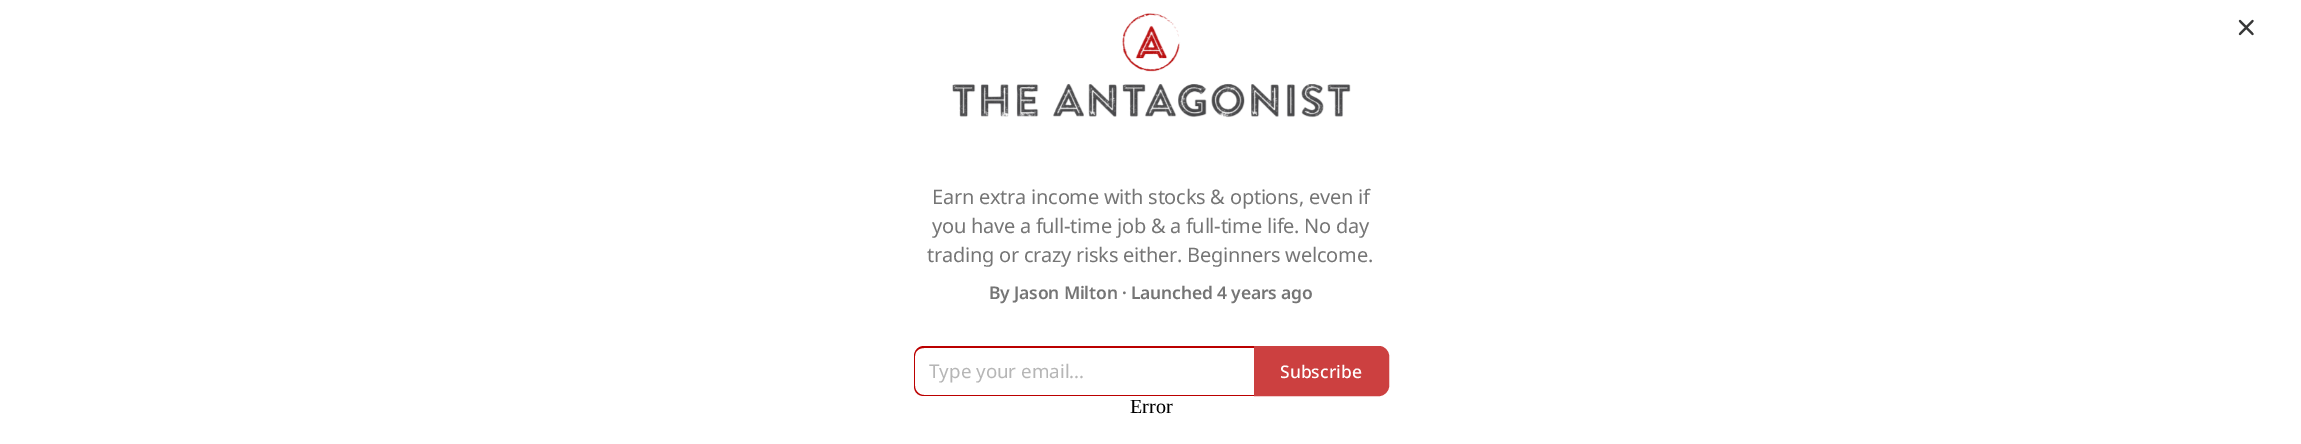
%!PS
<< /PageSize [2301 444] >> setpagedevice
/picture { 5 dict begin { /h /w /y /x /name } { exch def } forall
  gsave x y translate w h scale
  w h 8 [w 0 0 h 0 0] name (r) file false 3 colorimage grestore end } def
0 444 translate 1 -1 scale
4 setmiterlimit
1 setgray
0 0 2301 444 rectfill
(img1.rgb) 952 13 399 105 picture
0.212 0.216 0.216 setrgbcolor
2.1 setlinewidth
1 setlinecap
1 setlinejoin
newpath 2252.5 21 moveto 2240 34 lineto 2240 21 moveto 2252.5 34 lineto stroke
/NotoSans-Regular [20 0 0 -20 0 0] selectfont
0.459 setgray
932 204 moveto -0.25 0 (Earn extra income with stocks & options, even if) ashow
932 233 moveto -0.25 0 (you have a full-time job & a full-time life. No day) ashow
927 262 moveto -0.25 0 (trading or crazy risks either. Beginners welcome.) ashow
/NotoSans-SemiBold [17.5 0 0 -17.5 0 0] selectfont
989 299 moveto -0.2 0 (By Jason Milton · Launched 4 years ago) ashow
0.733 0 0 setrgbcolor
newpath 924 346 moveto 1254 346 lineto 1254 396 lineto 924 396 lineto 918 396 914 392 914 386 curveto 914 356 lineto 914 351 918 346 924 346 curveto closepath 924 348 moveto 1254 348 lineto 1254 395 lineto 924 395 lineto 919 395 915 391 915 386 curveto 915 356 lineto 915 351 919 348 924 348 curveto closepath eofill
/NotoSans-Regular [18.75 0 0 -18.75 0 0] selectfont
0.714 setgray
929 378 moveto (Type your email...) show
0.8 0.251 0.251 setrgbcolor
newpath 1254.5 346.5 moveto 1379 346.5 lineto 1384 346.5 1388.5 351 1388.5 356 curveto 1388.5 386 lineto 1388.5 391 1384 395.5 1379 395.5 curveto 1254.5 395.5 lineto closepath gsave fill grestore
1 setlinewidth
0 setlinecap
0 setlinejoin
stroke
/NotoSans-Medium [17.5 0 0 -17.5 0 0] selectfont
1 setgray
1280 378 moveto (Subscribe) show
/LiberationSerif-Regular [20 0 0 -20 0 0] selectfont
0 setgray
1130 413 moveto (Error) show
showpage
